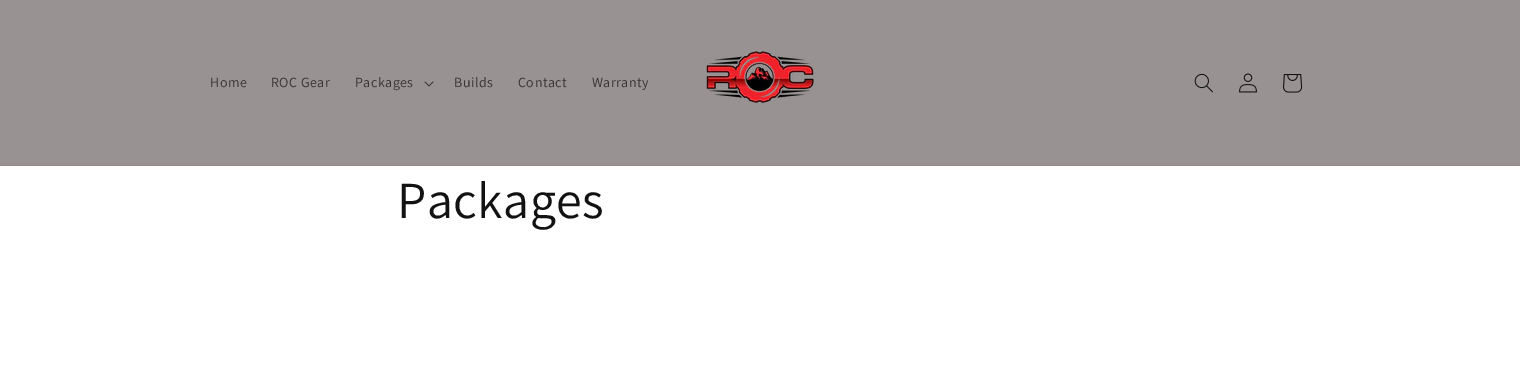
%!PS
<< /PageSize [1520 367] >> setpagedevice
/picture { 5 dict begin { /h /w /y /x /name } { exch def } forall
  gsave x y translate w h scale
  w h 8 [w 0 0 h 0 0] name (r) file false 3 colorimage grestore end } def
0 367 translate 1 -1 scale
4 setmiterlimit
1 setgray
0 0 1520 367 rectfill
0.6 0.573 0.573 setrgbcolor
0 0 1520 165 rectfill
0.557 0.533 0.533 setrgbcolor
0 165 1520 1 rectfill
/Assistant-Regular [14 0 0 -14 0 0] selectfont
0.204 0.196 0.196 setrgbcolor
210 87 moveto 0.5 0 (Home) ashow
271 87 moveto 0.5 0 (ROC Gear) ashow
355 87 moveto 0.5 0 (Packages) ashow
(img1.rgb) 424 81 10 6 picture
454 87 moveto 0.5 0 (Builds) ashow
518 87 moveto 0.5 0 (Contact) ashow
592 87 moveto 0.5 0 (Warranty) ashow
(img2.rgb) 706 51 108 52 picture
(img3.rgb) 1194 73 19 20 picture
(img4.rgb) 1239 73 18 20 picture
(img5.rgb) 1283 74 20 19 picture
/Assistant-Regular [52 0 0 -52 0 0] selectfont
0.071 setgray
397 218 moveto 0.5 0 (Packages) ashow
showpage
